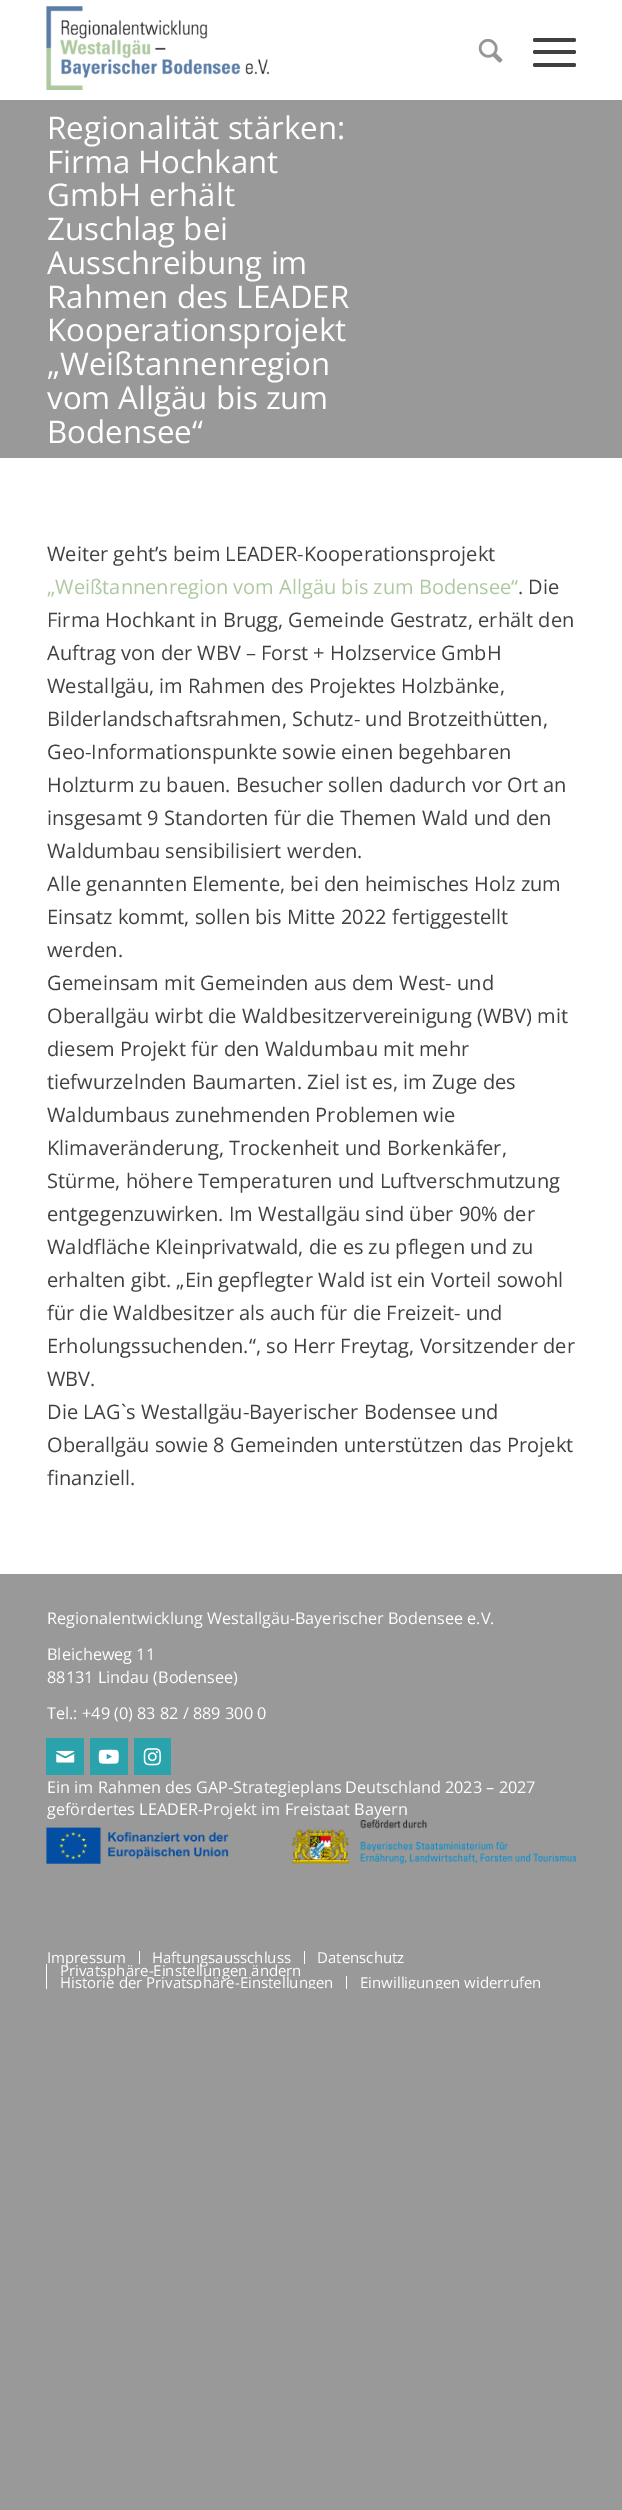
%!PS
<< /PageSize [622 2510] >> setpagedevice
/roundrect { 5 dict begin { /r /h /w /y /x } { exch def } forall
  x r add y moveto x w add y 2 copy h add r arct x w add y h add x 1 index r arct
  x y h add x y r arct x y 2 copy exch w add exch r arct closepath end } def
/picture { 5 dict begin { /h /w /y /x /name } { exch def } forall
  gsave x y translate w h scale
  w h 8 [w 0 0 h 0 0] name (r) file false 3 colorimage grestore end } def
0 2510 translate 1 -1 scale
4 setmiterlimit
0.6 setgray
0 0 622 2510 rectfill
1 setgray
0 0 622 1574 rectfill
(img1.rgb) 46 6 223 84 picture
(img2.rgb) 478 38 25 25 picture
0.251 setgray
533 50 43 4 2 roundrect fill
533 38 43 4 2 roundrect fill
533 63 43 4 2 roundrect fill
0.6 setgray
0 100 622 358 rectfill
/OpenSans-Regular [31.25 0 0 -31.25 0 0] selectfont
1 setgray
47 139 moveto (Regionalität stärken:) show
47 173 moveto (Firma Hochkant) show
47 206 moveto (GmbH erhält) show
47 240 moveto (Zuschlag bei) show
47 274 moveto (Ausschreibung im) show
47 308 moveto (Rahmen des LEADER) show
47 341 moveto (Kooperationsprojekt) show
47 375 moveto („Weißtannenregion) show
47 409 moveto (vom Allgäu bis zum) show
47 443 moveto (Bodensee“) show
/OpenSans-Regular [20 0 0 -20 0 0] selectfont
0.251 setgray
47 561 moveto (Weiter geht’s beim LEADER-Kooperationsprojekt) show
0.682 0.784 0.624 setrgbcolor
47 594 moveto („Weißtannenregion vom Allgäu bis zum Bodensee“) show
0.251 setgray
518 594 moveto (. Die) show
47 627 moveto (Firma Hochkant in Brugg, Gemeinde Gestratz, erhält den) show
47 660 moveto (Auftrag von der WBV – Forst + Holzservice GmbH) show
47 693 moveto (Westallgäu, im Rahmen des Projektes Holzbänke,) show
47 726 moveto (Bilderlandschaftsrahmen, Schutz- und Brotzeithütten,) show
47 759 moveto (Geo-Informationspunkte sowie einen begehbaren) show
47 792 moveto (Holzturm zu bauen. Besucher sollen dadurch vor Ort an) show
47 825 moveto (insgesamt 9 Standorten für die Themen Wald und den) show
47 858 moveto (Waldumbau sensibilisiert werden.) show
47 891 moveto (Alle genannten Elemente, bei den heimisches Holz zum) show
47 924 moveto (Einsatz kommt, sollen bis Mitte 2022 fertiggestellt) show
47 957 moveto (werden.) show
47 990 moveto (Gemeinsam mit Gemeinden aus dem West- und) show
47 1023 moveto (Oberallgäu wirbt die Waldbesitzervereinigung \(WBV\) mit) show
47 1056 moveto (diesem Projekt für den Waldumbau mit mehr) show
47 1089 moveto (tiefwurzelnden Baumarten. Ziel ist es, im Zuge des) show
47 1122 moveto (Waldumbaus zunehmenden Problemen wie) show
47 1155 moveto (Klimaveränderung, Trockenheit und Borkenkäfer,) show
47 1188 moveto (Stürme, höhere Temperaturen und Luftverschmutzung) show
47 1221 moveto (entgegenzuwirken. Im Westallgäu sind über 90% der) show
47 1254 moveto (Waldfläche Kleinprivatwald, die es zu pflegen und zu) show
47 1287 moveto (erhalten gibt. „Ein gepflegter Wald ist ein Vorteil sowohl) show
47 1320 moveto (für die Waldbesitzer als auch für die Freizeit- und) show
47 1353 moveto (Erholungssuchenden.“, so Herr Freytag, Vorsitzender der) show
47 1386 moveto (WBV.) show
47 1419 moveto (Die LAG`s Westallgäu-Bayerischer Bodensee und) show
47 1452 moveto (Oberallgäu sowie 8 Gemeinden unterstützen das Projekt) show
47 1485 moveto (finanziell.) show
/OpenSans-Regular [16.25 0 0 -16.25 0 0] selectfont
1 setgray
47 1624 moveto (Regionalentwicklung Westallgäu-Bayerischer Bodensee e.V.) show
47 1660 moveto (Bleicheweg 11) show
47 1683 moveto (88131 Lindau \(Bodensee\)) show
47 1719 moveto (Tel.: +49 \(0\) 83 82 / 889 300 0) show
0.165 0.639 0.675 setrgbcolor
46 1738 38 37 rectfill
(img3.rgb) 56 1750 19 13 picture
90 1738 38 37 rectfill
(img4.rgb) 98 1749 21 15 picture
134 1738 37 37 rectfill
(img5.rgb) 143 1748 18 18 picture
1 setgray
47 1793 moveto (Ein im Rahmen des GAP-Strategieplans Deutschland 2023 – 2027) show
47 1815 moveto (gefördertes LEADER-Projekt im Freistaat Bayern) show
(img6.rgb) 46 1820 531 44 picture
/OpenSans-Regular [15 0 0 -15 0 0] selectfont
47 1963 moveto (Impressum) show
139 1951 1 13 rectfill
152 1963 moveto (Haftungsausschluss) show
304 1951 1 13 rectfill
317 1963 moveto (Datenschutz) show
46 1964 1 25 rectfill
60 1976 moveto (Privatsphäre-Einstellungen ändern) show
gsave
46 1944 530 45 rectclip
60 1988 moveto (Historie der Privatsphäre-Einstellungen) show
grestore
346 1976 1 13 rectfill
gsave
46 1944 530 45 rectclip
360 1988 moveto (Einwilligungen widerrufen) show
grestore
showpage
